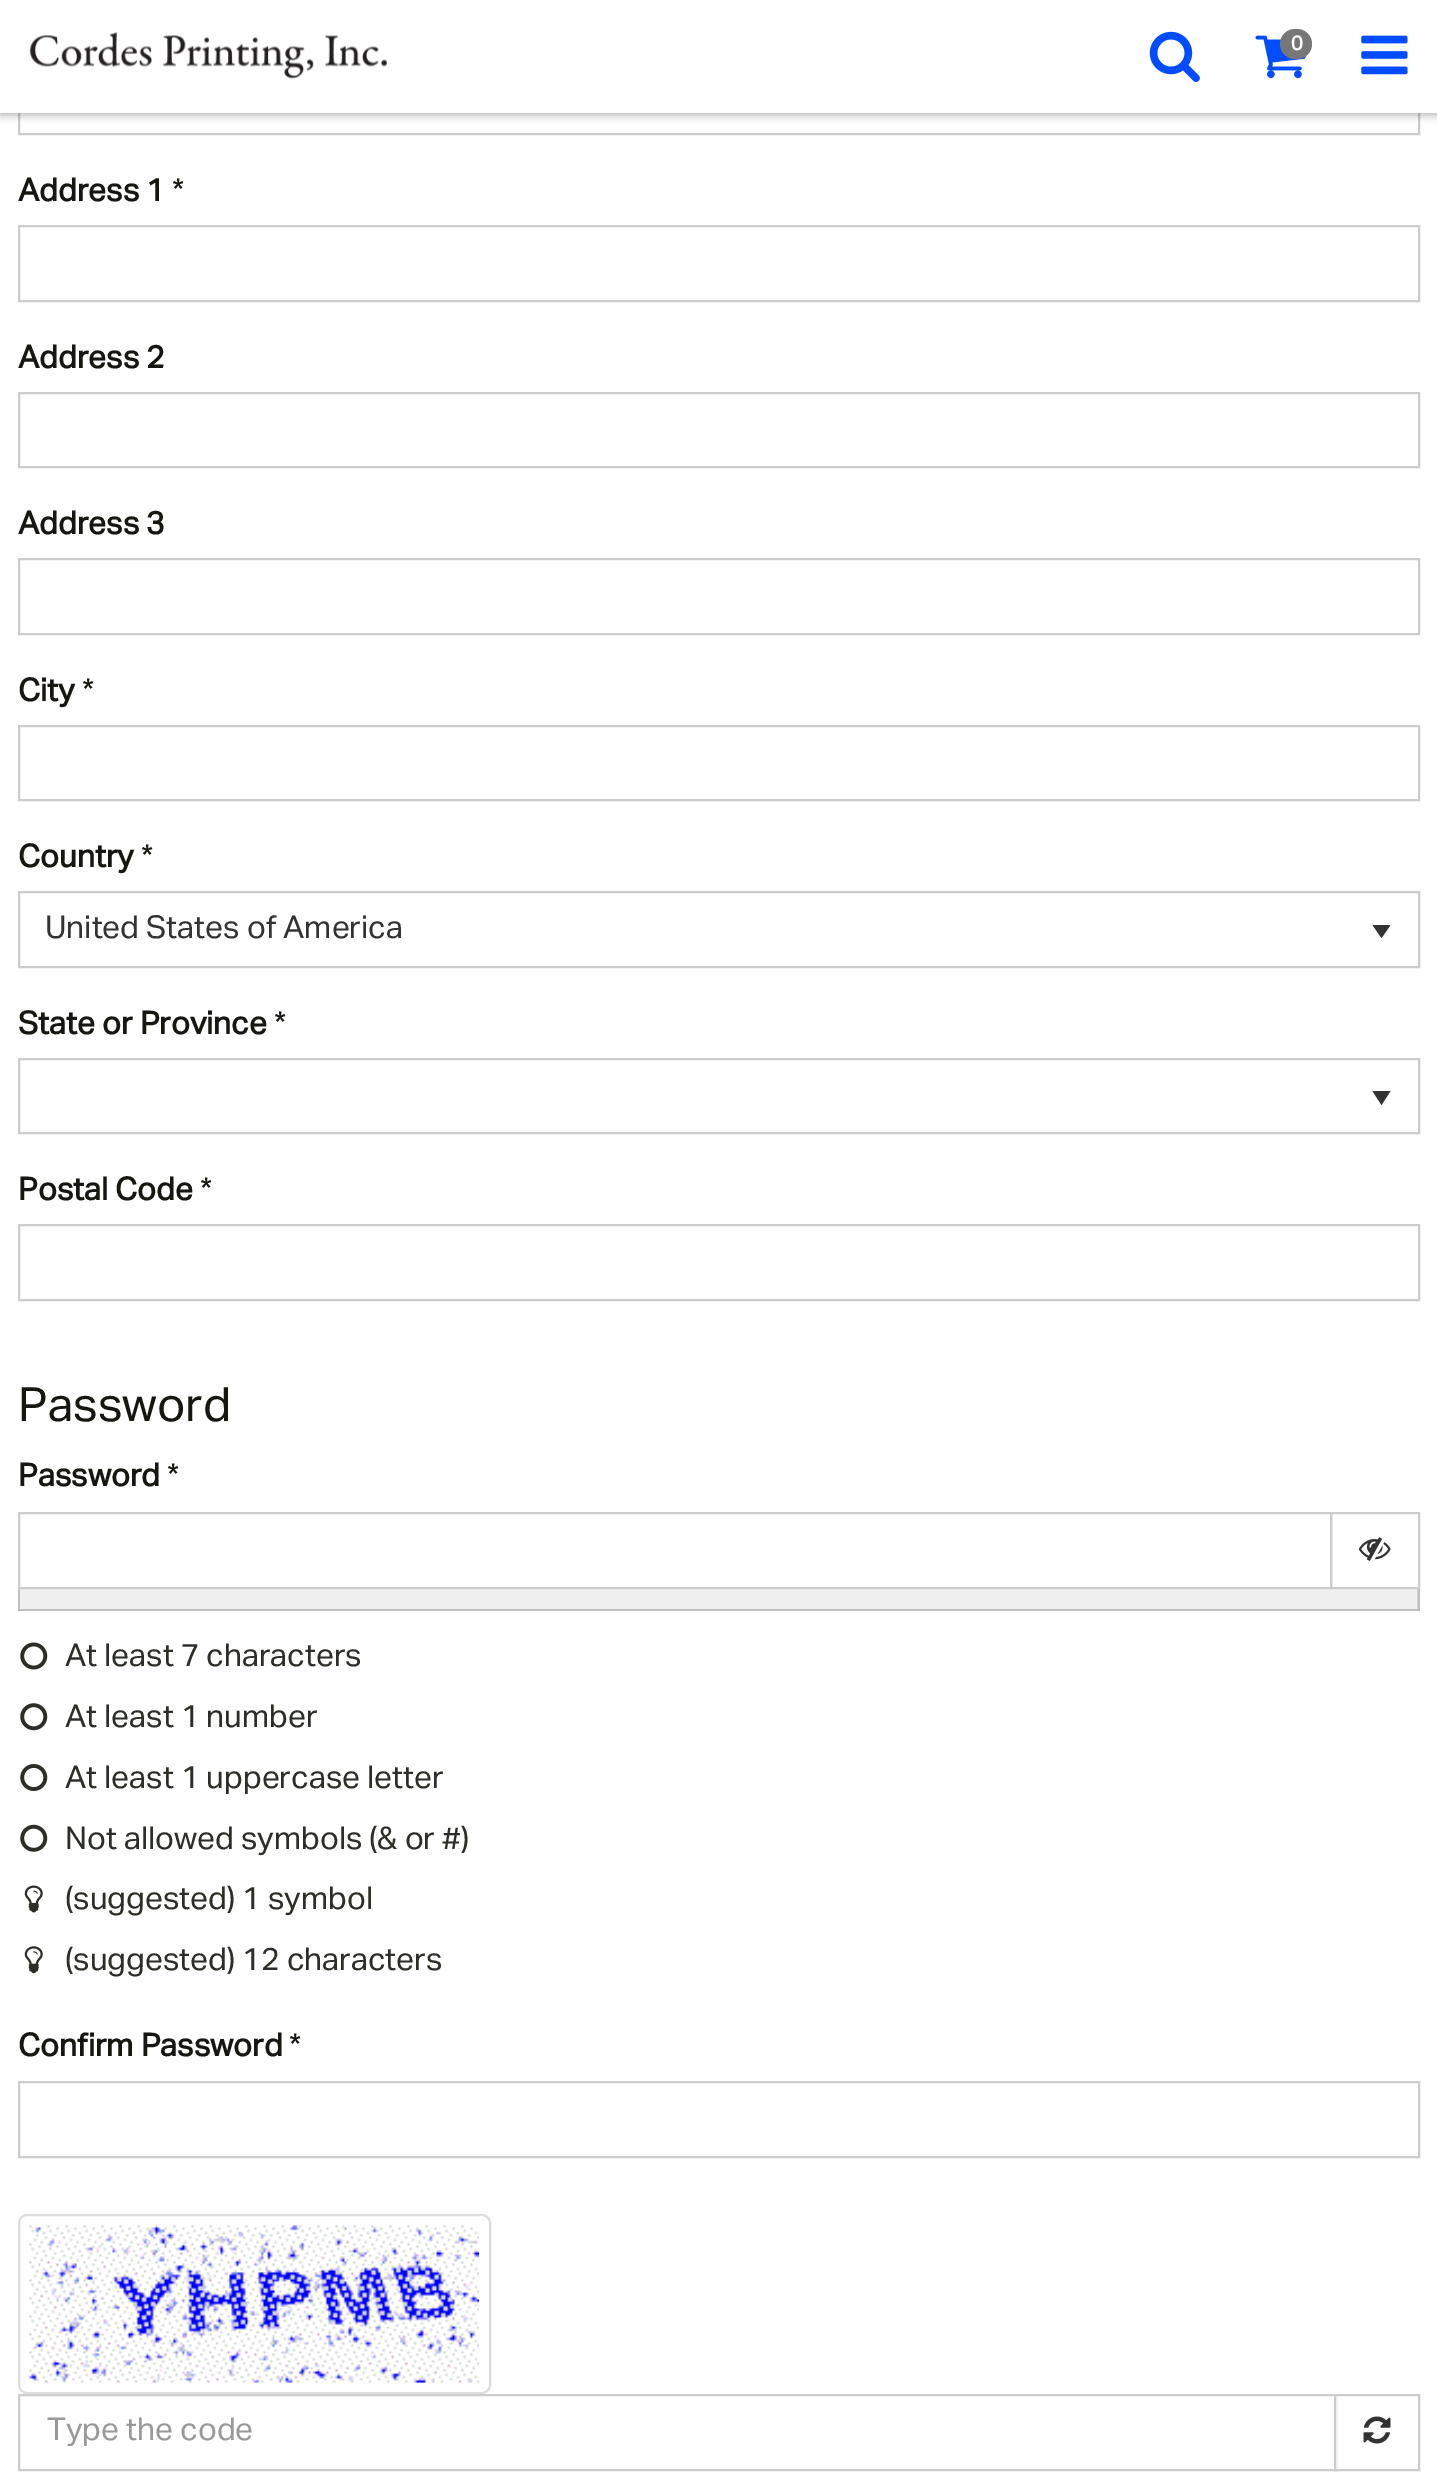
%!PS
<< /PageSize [1437 2483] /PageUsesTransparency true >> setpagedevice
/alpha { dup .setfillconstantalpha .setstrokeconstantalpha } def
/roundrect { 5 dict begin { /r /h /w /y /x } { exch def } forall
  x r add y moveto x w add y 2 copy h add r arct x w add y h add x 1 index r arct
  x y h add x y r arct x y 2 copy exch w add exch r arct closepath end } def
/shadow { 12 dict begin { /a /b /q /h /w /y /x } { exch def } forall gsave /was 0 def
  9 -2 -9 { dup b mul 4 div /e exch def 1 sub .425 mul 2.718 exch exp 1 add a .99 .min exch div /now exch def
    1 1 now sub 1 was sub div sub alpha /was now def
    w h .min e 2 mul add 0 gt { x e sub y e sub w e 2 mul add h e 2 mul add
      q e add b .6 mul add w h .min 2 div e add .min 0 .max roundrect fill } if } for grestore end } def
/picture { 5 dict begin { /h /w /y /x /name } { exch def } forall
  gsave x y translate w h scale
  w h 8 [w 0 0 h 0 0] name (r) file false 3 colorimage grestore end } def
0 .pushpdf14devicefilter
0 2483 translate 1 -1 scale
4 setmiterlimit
1 setgray
0 0 1437 2483 rectfill
0.8 setgray
2 setlinewidth
19 60 1400 74 rectstroke
0 setgray
0 2 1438 113 0 4.5 0.3 shadow
1 setgray
0 0 1437 113 rectfill
(img1.rgb) 29 32 358 47 picture
(img2.rgb) 1149 31 51 51 picture
(img3.rgb) 1255 35 51 44 picture
0.467 setgray
1280 29 32 30 15 roundrect fill
/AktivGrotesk-Bold [20 0 0 -20 0 0] selectfont
1 setgray
1291 50 moveto (0) show
(img4.rgb) 1361 35 47 40 picture
/AktivGrotesk-Bold [31.5 0 0 -31.5 0 0] selectfont
0.082 0.09 0.063 setrgbcolor
18 201 moveto (Address 1) show
/AktivGrotesk-Regular [31.5 0 0 -31.5 0 0] selectfont
172 201 moveto (*) show
0.8 setgray
19 226 1400 75 rectstroke
/AktivGrotesk-Bold [31.5 0 0 -31.5 0 0] selectfont
0.082 0.09 0.063 setrgbcolor
18 368 moveto (Address 2) show
0.8 setgray
19 393 1400 74 rectstroke
0.082 0.09 0.063 setrgbcolor
18 534 moveto (Address 3) show
0.8 setgray
19 559 1400 75 rectstroke
0.082 0.09 0.063 setrgbcolor
18 701 moveto (City) show
/AktivGrotesk-Regular [31.5 0 0 -31.5 0 0] selectfont
82 701 moveto (*) show
0.8 setgray
19 726 1400 74 rectstroke
/AktivGrotesk-Bold [31.5 0 0 -31.5 0 0] selectfont
0.082 0.09 0.063 setrgbcolor
18 867 moveto (Country) show
/AktivGrotesk-Regular [31.5 0 0 -31.5 0 0] selectfont
141 867 moveto (*) show
0.8 setgray
19 892 1400 75 rectstroke
0.2 setgray
45 938 moveto (United States of America) show
newpath 1381.5 938 moveto 1372.5 925 lineto 1390.5 925 lineto closepath fill
/AktivGrotesk-Bold [31.5 0 0 -31.5 0 0] selectfont
0.082 0.09 0.063 setrgbcolor
18 1034 moveto (State or Province) show
/AktivGrotesk-Regular [31.5 0 0 -31.5 0 0] selectfont
274 1034 moveto (*) show
0.8 setgray
19 1059 1400 74 rectstroke
0.2 setgray
newpath 1381.5 1105 moveto 1372.5 1091 lineto 1390.5 1091 lineto closepath fill
/AktivGrotesk-Bold [31.5 0 0 -31.5 0 0] selectfont
0.082 0.09 0.063 setrgbcolor
18 1200 moveto (Postal Code) show
/AktivGrotesk-Regular [31.5 0 0 -31.5 0 0] selectfont
200 1200 moveto (*) show
0.8 setgray
19 1225 1400 75 rectstroke
/AktivGrotesk-Regular [47.25 0 0 -47.25 0 0] selectfont
0.082 0.09 0.063 setrgbcolor
18 1421 moveto (Password) show
/AktivGrotesk-Bold [31.5 0 0 -31.5 0 0] selectfont
18 1486 moveto (Password) show
/AktivGrotesk-Regular [31.5 0 0 -31.5 0 0] selectfont
167 1486 moveto (*) show
0.941 setgray
18 1589 1402 22 rectfill
0.753 setgray
newpath 1420 1588.5 moveto 1420 1611 lineto 1417.5 1609 lineto 1417.5 1588.5 lineto closepath fill
0.2 alpha
0 setgray
newpath 1420 1611 moveto 18 1611 lineto 20 1609 lineto 1418 1609 lineto closepath fill
newpath 18 1611 moveto 18 1588.5 lineto 20 1588.5 lineto 20 1609 lineto closepath fill
1 alpha
0.8 setgray
19 1513 1312 75 rectstroke
1331 1513 88 75 rectstroke
(img5.rgb) 1359 1537 32 24 picture
(img6.rgb) 20 1642 28 28 picture
0.173 0.18 0.157 setrgbcolor
65 1666 moveto (At least 7 characters) show
(img7.rgb) 20 1703 28 28 picture
65 1727 moveto (At least 1 number) show
(img8.rgb) 20 1764 28 27 picture
65 1788 moveto (At least 1 uppercase letter) show
(img9.rgb) 20 1824 28 28 picture
65 1849 moveto (Not allowed symbols \(& or #\)) show
(img10.rgb) 24 1885 19 28 picture
65 1909 moveto (\(suggested\) 1 symbol) show
(img11.rgb) 24 1946 19 28 picture
65 1970 moveto (\(suggested\) 12 characters) show
/AktivGrotesk-Bold [31.5 0 0 -31.5 0 0] selectfont
0.082 0.09 0.063 setrgbcolor
18 2056 moveto (Confirm Password) show
/AktivGrotesk-Regular [31.5 0 0 -31.5 0 0] selectfont
289 2056 moveto (*) show
0.8 setgray
19 2082 1400 75 rectstroke
0.867 setgray
19 2215 471 178 8 roundrect stroke
(img12.rgb) 29 2225 451 158 picture
0.8 setgray
19 2395 1317 75 rectstroke
0.6 setgray
47 2440 moveto (Type the code) show
1 setgray
1336 2396 1 73 rectfill
0.8 setgray
1335 2395 84 75 rectstroke
(img13.rgb) 1363 2416 28 28 picture
.poppdf14devicefilter showpage
